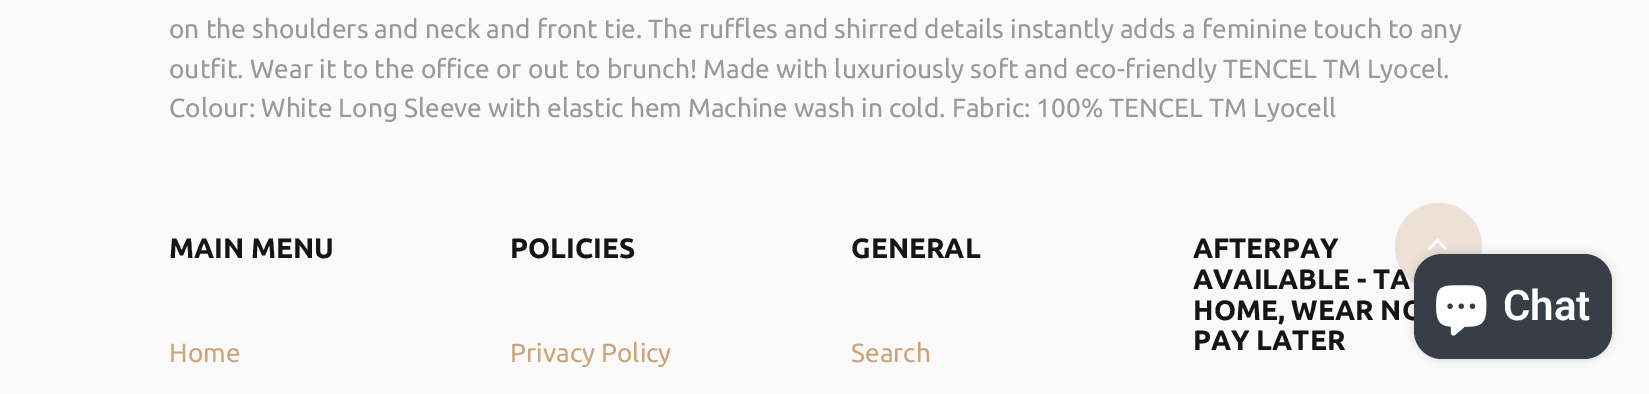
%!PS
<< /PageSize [1649 394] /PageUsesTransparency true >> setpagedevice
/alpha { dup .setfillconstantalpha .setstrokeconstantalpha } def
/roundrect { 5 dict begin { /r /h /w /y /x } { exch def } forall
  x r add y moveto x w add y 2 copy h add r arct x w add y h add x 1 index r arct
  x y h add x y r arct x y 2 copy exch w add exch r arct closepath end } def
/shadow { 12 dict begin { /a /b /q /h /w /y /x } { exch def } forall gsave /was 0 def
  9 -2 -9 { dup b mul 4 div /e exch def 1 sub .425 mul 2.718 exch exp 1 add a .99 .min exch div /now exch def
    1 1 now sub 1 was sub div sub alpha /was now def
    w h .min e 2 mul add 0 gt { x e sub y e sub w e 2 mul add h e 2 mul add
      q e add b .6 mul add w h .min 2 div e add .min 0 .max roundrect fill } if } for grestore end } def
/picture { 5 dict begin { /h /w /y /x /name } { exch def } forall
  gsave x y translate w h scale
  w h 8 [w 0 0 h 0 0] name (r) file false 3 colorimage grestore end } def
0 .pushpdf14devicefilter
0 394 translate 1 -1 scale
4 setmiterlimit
0.98 setgray
0 0 1649 394 rectfill
/Ubuntu-Regular [26.25 0 0 -26.25 0 0] selectfont
0.6 setgray
169 38 moveto (on the shoulders and neck and front tie. The ruffles and shirred details instantly adds a feminine touch to any) show
169 78 moveto (outfit. Wear it to the office or out to brunch! Made with luxuriously soft and eco-friendly TENCEL TM Lyocel.) show
169 117 moveto (Colour: White Long Sleeve with elastic hem Machine wash in cold. Fabric: 100% TENCEL TM Lyocell) show
/Ubuntu-Bold [28 0 0 -28 0 0] selectfont
0.09 0.078 0.078 setrgbcolor
169 258 moveto (MAIN MENU) show
/Ubuntu-Regular [26.25 0 0 -26.25 0 0] selectfont
0.804 0.639 0.475 setrgbcolor
169 362 moveto (Home) show
/Ubuntu-Bold [28 0 0 -28 0 0] selectfont
0.09 0.078 0.078 setrgbcolor
510 258 moveto (POLICIES) show
/Ubuntu-Regular [26.25 0 0 -26.25 0 0] selectfont
0.804 0.639 0.475 setrgbcolor
510 362 moveto (Privacy Policy) show
/Ubuntu-Bold [28 0 0 -28 0 0] selectfont
0.09 0.078 0.078 setrgbcolor
851 258 moveto (GENERAL) show
/Ubuntu-Regular [26.25 0 0 -26.25 0 0] selectfont
0.804 0.639 0.475 setrgbcolor
851 362 moveto (Search) show
/Ubuntu-Bold [28 0 0 -28 0 0] selectfont
0.09 0.078 0.078 setrgbcolor
1193 258 moveto (AFTERPAY) show
1193 289 moveto (AVAILABLE - TA) show
1193 320 moveto (HOME, WEAR NO) show
1193 350 moveto (PAY LATER) show
0.29 alpha
0.804 0.639 0.475 setrgbcolor
1395 203 87 88 43.5 roundrect fill
1 alpha
(img1.rgb) 1427 239 21 12 picture
0 setgray
1414 254 198 105 28 4.5 0.15 shadow
0.22 0.243 0.271 setrgbcolor
1414 254 198 105 28 roundrect fill
(img2.rgb) 1436 285 51 51 picture
/Roboto-SemiBold [42 0 0 -42 0 0] selectfont
1 setgray
1503 320 moveto (Chat) show
.poppdf14devicefilter showpage
